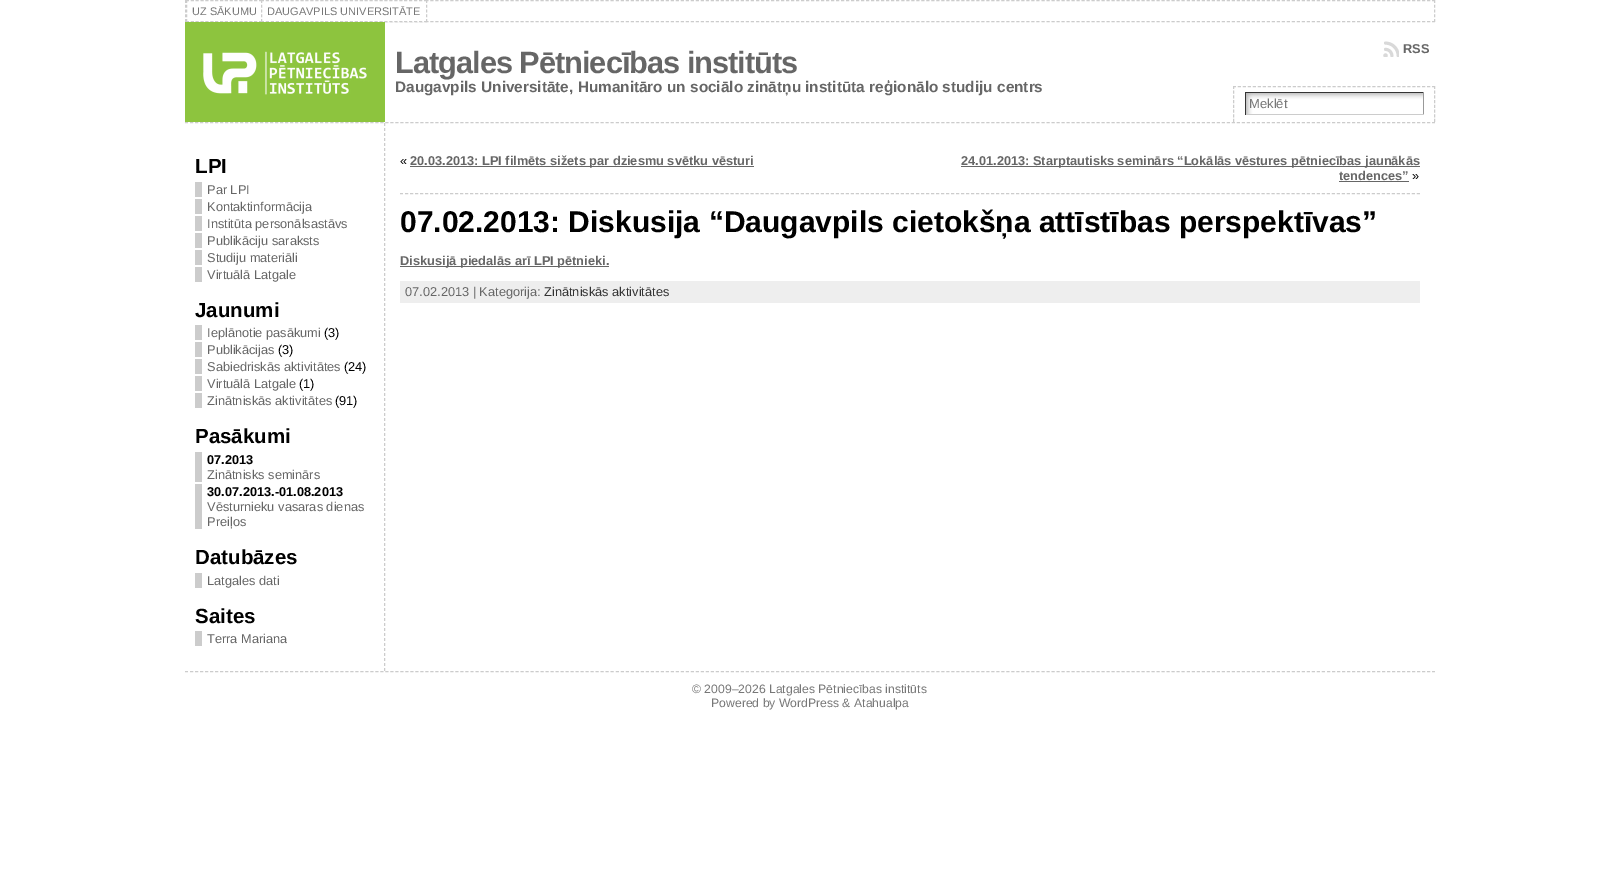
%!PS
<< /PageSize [1619 885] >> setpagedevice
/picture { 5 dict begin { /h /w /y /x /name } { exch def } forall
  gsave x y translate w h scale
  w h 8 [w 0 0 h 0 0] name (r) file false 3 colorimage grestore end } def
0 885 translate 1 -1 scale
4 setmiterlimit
1 setgray
0 0 1619 885 rectfill
0.8 setgray
[3 2.01] 0 setdash
newpath 185 0.5 moveto 1435 0.5 lineto stroke
[3 1.75] 0 setdash
newpath 1434.5 0 moveto 1434.5 22 lineto stroke
[3 2.01] 0 setdash
newpath 185 21.5 moveto 1435 21.5 lineto stroke
[3 1.75] 0 setdash
newpath 185.5 0 moveto 185.5 22 lineto stroke
1 setgray
186 0 75 22 rectfill
0.8 setgray
[3 1.87] 0 setdash
newpath 186 0.5 moveto 262 0.5 lineto stroke
newpath 186 21.5 moveto 262 21.5 lineto stroke
[3 1.75] 0 setdash
newpath 186.5 0 moveto 186.5 22 lineto stroke
/LiberationSans-Regular [11 0 0 -11 0 0] selectfont
0.467 setgray
192 15 moveto (UZ SĀKUMU) show
1 setgray
261 0 166 22 rectfill
0.8 setgray
[3 1.94] 0 setdash
newpath 261 0.5 moveto 427 0.5 lineto stroke
[3 1.75] 0 setdash
newpath 426.5 0 moveto 426.5 22 lineto stroke
[3 1.94] 0 setdash
newpath 261 21.5 moveto 427 21.5 lineto stroke
[3 1.75] 0 setdash
newpath 261.5 0 moveto 261.5 22 lineto stroke
0.467 setgray
267 15 moveto (DAUGAVPILS UNIVERSITĀTE) show
0.8 setgray
[3 2.01] 0 setdash
newpath 185 122.5 moveto 1435 122.5 lineto stroke
(img1.rgb) 185 22 200 100 picture
(img2.rgb) 1383 41 16 16 picture
/LiberationSans-Bold [12.8 0 0 -12.8 0 0] selectfont
0.4 setgray
1403 53 moveto (RSS) show
/LiberationSans-Bold [30.75 0 0 -30.75 0 0] selectfont
395 73 moveto -1 0 (Latgales Pētniecības institūts) ashow
/LiberationSans-Bold [15.35 0 0 -15.35 0 0] selectfont
395 92 moveto (Daugavpils Universitāte, Humanitāro un sociālo zinātņu institūta reģionālo studiju centrs) show
0.8 setgray
[3 1.98] 0 setdash
newpath 1233 86.5 moveto 1435 86.5 lineto stroke
[3 1.71] 0 setdash
newpath 1434.5 86 moveto 1434.5 122 lineto stroke
newpath 1233.5 86 moveto 1233.5 122 lineto stroke
(img3.rgb) 1246 93 177 21 picture
0.2 setgray
1245 92 179 1 rectfill
0.6 setgray
1423 92 1 23 rectfill
0.8 setgray
1245 114 179 1 rectfill
0.2 setgray
1245 92 1 23 rectfill
/LiberationSans-Regular [13 0 0 -13 0 0] selectfont
0.467 setgray
1249 108 moveto (Meklēt) show
0.8 setgray
[3 2] 0 setdash
newpath 384.5 123 moveto 384.5 671 lineto stroke
/LiberationSans-Bold [20.5 0 0 -20.5 0 0] selectfont
0 setgray
195 173 moveto (LPI) show
0.8 setgray
195 182 7 15 rectfill
/LiberationSans-Regular [12.8 0 0 -12.8 0 0] selectfont
0.4 setgray
207 194 moveto (Par LPI) show
0.8 setgray
195 199 7 15 rectfill
0.4 setgray
207 211 moveto (Kontaktinformācija) show
0.8 setgray
195 216 7 15 rectfill
0.4 setgray
207 228 moveto (Institūta personālsastāvs) show
0.8 setgray
195 233 7 15 rectfill
0.4 setgray
207 245 moveto (Publikāciju saraksts) show
0.8 setgray
195 250 7 15 rectfill
0.4 setgray
207 262 moveto (Studiju materiāli) show
0.8 setgray
195 267 7 15 rectfill
0.4 setgray
207 279 moveto (Virtuālā Latgale) show
/LiberationSans-Bold [20.5 0 0 -20.5 0 0] selectfont
0 setgray
195 317 moveto (Jaunumi) show
/LiberationSans-Regular [12.8 0 0 -12.8 0 0] selectfont
0.4 setgray
207 337 moveto (Ieplānotie pasākumi) show
0.8 setgray
195 325 7 15 rectfill
0 setgray
324 337 moveto (\(3\)) show
0.4 setgray
207 354 moveto (Publikācijas) show
0.8 setgray
195 342 7 15 rectfill
0 setgray
278 354 moveto (\(3\)) show
0.4 setgray
207 371 moveto (Sabiedriskās aktivitātes) show
0.8 setgray
195 359 7 15 rectfill
0 setgray
344 371 moveto (\(24\)) show
0.4 setgray
207 388 moveto (Virtuālā Latgale) show
0.8 setgray
195 376 7 15 rectfill
0 setgray
299 388 moveto (\(1\)) show
0.4 setgray
207 405 moveto (Zinātniskās aktivitātes) show
0.8 setgray
195 393 7 15 rectfill
0 setgray
335 405 moveto (\(91\)) show
/LiberationSans-Bold [20.5 0 0 -20.5 0 0] selectfont
195 443 moveto (Pasākumi) show
0.8 setgray
195 452 7 30 rectfill
/LiberationSans-Bold [12.8 0 0 -12.8 0 0] selectfont
0 setgray
207 464 moveto (07.2013) show
/LiberationSans-Regular [12.8 0 0 -12.8 0 0] selectfont
0.4 setgray
207 479 moveto (Zinātnisks seminārs) show
0.8 setgray
195 484 7 45 rectfill
/LiberationSans-Bold [12.8 0 0 -12.8 0 0] selectfont
0 setgray
207 496 moveto (30.07.2013.-01.08.2013) show
/LiberationSans-Regular [12.8 0 0 -12.8 0 0] selectfont
0.4 setgray
207 511 moveto (Vēsturnieku vasaras dienas) show
207 526 moveto (Preiļos) show
/LiberationSans-Bold [20.5 0 0 -20.5 0 0] selectfont
0 setgray
195 564 moveto (Datubāzes) show
0.8 setgray
195 573 7 15 rectfill
/LiberationSans-Regular [12.8 0 0 -12.8 0 0] selectfont
0.4 setgray
207 585 moveto (Latgales dati) show
/LiberationSans-Bold [20.5 0 0 -20.5 0 0] selectfont
0 setgray
195 623 moveto (Saites) show
0.8 setgray
195 631 7 15 rectfill
/LiberationSans-Regular [12.8 0 0 -12.8 0 0] selectfont
0.4 setgray
207 643 moveto (Terra Mariana) show
0.8 setgray
[3 2.01] 0 setdash
newpath 400 193.5 moveto 1420 193.5 lineto stroke
0 setgray
400 165 moveto («) show
0.4 setgray
410 166 344 1 rectfill
/LiberationSans-Bold [12.8 0 0 -12.8 0 0] selectfont
410 165 moveto (20.03.2013: LPI filmēts sižets par dziesmu svētku vēsturi) show
961 166 459 1 rectfill
961 165 moveto (24.01.2013: Starptautisks seminārs “Lokālās vēstures pētniecības jaunākās) show
1339 180 moveto (tendences”) show
1339 181 70 1 rectfill
/LiberationSans-Regular [12.8 0 0 -12.8 0 0] selectfont
0 setgray
1412 180 moveto (») show
/LiberationSans-Bold [30 0 0 -30 0 0] selectfont
400 232 moveto (07.02.2013: Diskusija “Daugavpils cietokšņa attīstības perspektīvas”) show
0.4 setgray
400 266 209 1 rectfill
/LiberationSans-Bold [12.8 0 0 -12.8 0 0] selectfont
400 265 moveto (Diskusijā piedalās arī LPI pētnieki.) show
0.933 setgray
400 281 1020 22 rectfill
/LiberationSans-Regular [12.8 0 0 -12.8 0 0] selectfont
0.4 setgray
405 296 moveto (07.02.2013 | Kategorija:) show
0.2 setgray
544 296 moveto (Zinātniskās aktivitātes) show
0.8 setgray
newpath 185 671.5 moveto 1435 671.5 lineto stroke
/LiberationSans-Regular [12.2 0 0 -12.2 0 0] selectfont
0.467 setgray
692 693 moveto (© 2009–2026 Latgales Pētniecības institūts) show
711 707 moveto (Powered by WordPress & Atahualpa) show
showpage
